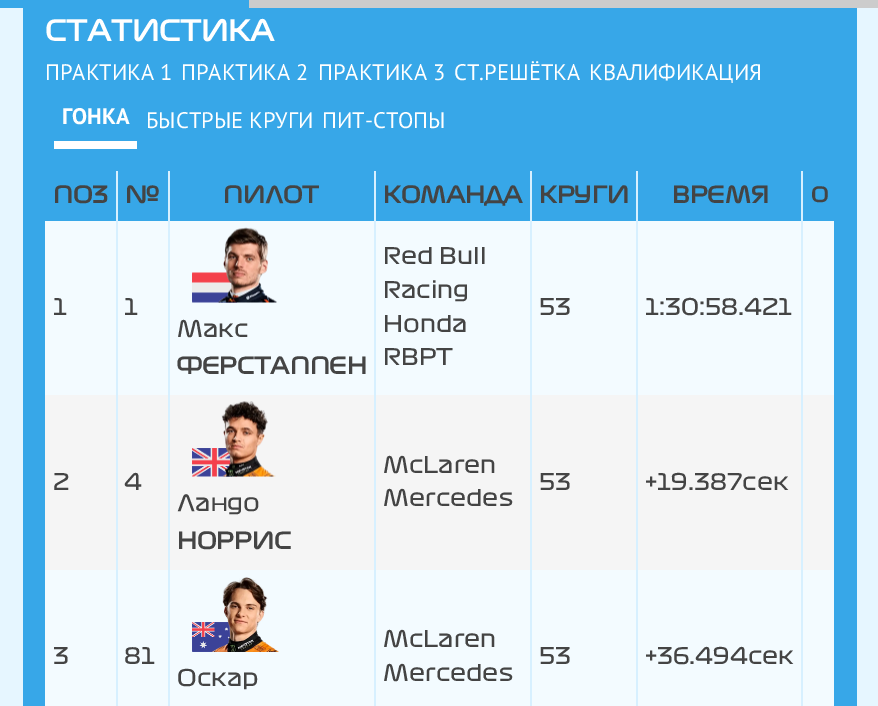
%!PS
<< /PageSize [878 706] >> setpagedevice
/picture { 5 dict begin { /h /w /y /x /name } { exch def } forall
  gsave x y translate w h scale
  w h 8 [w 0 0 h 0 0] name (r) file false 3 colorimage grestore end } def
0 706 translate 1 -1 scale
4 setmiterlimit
0.902 0.965 1 setrgbcolor
0 0 878 706 rectfill
0.8 setgray
249 0 629 8 rectfill
0.216 0.655 0.91 setrgbcolor
0 0 249 8 rectfill
23 8 834 698 rectfill
/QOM-Bold [28 0 0 -28 0 0] selectfont
1 setgray
45 41 moveto (СТАТИСТИКА) show
/PTSans-Regular [22.5 0 0 -22.5 0 0] selectfont
45 80 moveto (ПРАКТИКА 1) show
181 80 moveto (ПРАКТИКА 2) show
318 80 moveto (ПРАКТИКА 3) show
454 80 moveto (СТ.РЕШЁТКА) show
589 80 moveto (КВАЛИФИКАЦИЯ) show
54 141 83 8 rectfill
/PTSans-Bold [22.5 0 0 -22.5 0 0] selectfont
62 124 moveto (ГОНКА) show
/PTSans-Regular [22.5 0 0 -22.5 0 0] selectfont
146 128 moveto (БЫСТРЫЕ КРУГИ) show
322 128 moveto (ПИТ-СТОПЫ) show
/QOM-Bold [22.5 0 0 -22.5 0 0] selectfont
0.267 setgray
53 203 moveto (ПОЗ) show
125 203 moveto (№) show
223 203 moveto (ПИЛОТ) show
383 203 moveto (КОМАНДА) show
539 203 moveto (КРУГИ) show
672 203 moveto (ВРЕМЯ) show
/QOM-Bold [20 0 0 -20 0 0] selectfont
811 202 moveto (О) show
0.953 0.984 1 setrgbcolor
45 221 789 174 rectfill
/QOM-Regular [22.5 0 0 -22.5 0 0] selectfont
0.267 setgray
53 315 moveto (1) show
124 315 moveto (1) show
383 264 moveto (Red Bull) show
383 298 moveto (Racing) show
383 332 moveto (Honda) show
383 365 moveto (RBPT) show
539 315 moveto (53) show
645 315 moveto (1:30:58.421) show
(img1.rgb) 192 272 45 31 picture
(img2.rgb) 218 227 59 76 picture
177 337 moveto (Макс) show
/QOM-Bold [22.5 0 0 -22.5 0 0] selectfont
177 374 moveto (ФЕРСТАППЕН) show
0.961 setgray
45 395 789 175 rectfill
/QOM-Regular [22.5 0 0 -22.5 0 0] selectfont
0.267 setgray
53 490 moveto (2) show
124 490 moveto (4) show
383 473 moveto (McLaren) show
383 506 moveto (Mercedes) show
539 490 moveto (53) show
645 490 moveto (+19.387сек) show
(img3.rgb) 192 448 45 29 picture
(img4.rgb) 221 401 55 76 picture
177 511 moveto (Ландо) show
/QOM-Bold [22.5 0 0 -22.5 0 0] selectfont
177 549 moveto (НОРРИС) show
0.953 0.984 1 setrgbcolor
45 570 789 136 rectfill
0.843 0.941 1 setrgbcolor
116 171 2 535 rectfill
/QOM-Regular [22.5 0 0 -22.5 0 0] selectfont
0.267 setgray
53 664 moveto (3) show
0.843 0.941 1 setrgbcolor
168 171 2 535 rectfill
0.267 setgray
124 664 moveto (81) show
0.843 0.941 1 setrgbcolor
530 171 2 535 rectfill
0.267 setgray
383 647 moveto (McLaren) show
383 681 moveto (Mercedes) show
0.843 0.941 1 setrgbcolor
636 171 2 535 rectfill
0.267 setgray
539 664 moveto (53) show
0.843 0.941 1 setrgbcolor
801 171 2 535 rectfill
0.267 setgray
645 664 moveto (+36.494сек) show
0.843 0.941 1 setrgbcolor
374 171 2 535 rectfill
(img5.rgb) 192 622 39 30 picture
(img6.rgb) 212 577 67 75 picture
0.267 setgray
177 686 moveto (Оскар) show
showpage
